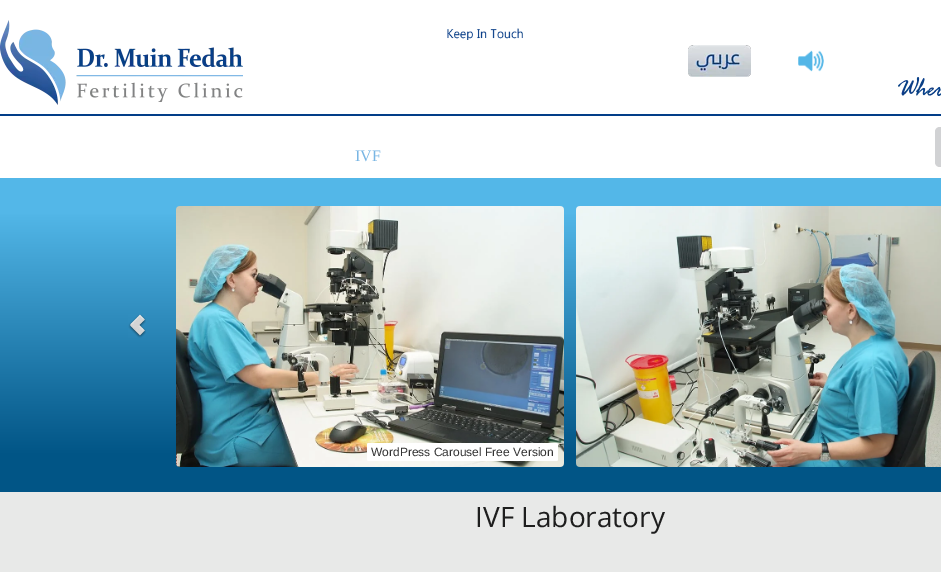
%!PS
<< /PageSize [941 572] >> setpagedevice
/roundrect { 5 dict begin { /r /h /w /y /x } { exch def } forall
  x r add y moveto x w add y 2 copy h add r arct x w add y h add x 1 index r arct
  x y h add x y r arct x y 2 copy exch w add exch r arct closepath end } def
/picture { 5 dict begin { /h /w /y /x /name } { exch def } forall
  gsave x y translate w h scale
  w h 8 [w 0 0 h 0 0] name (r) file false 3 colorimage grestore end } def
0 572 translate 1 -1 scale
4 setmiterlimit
1 setgray
0 0 941 572 rectfill
0.008 0.243 0.533 setrgbcolor
0 114 941 2 rectfill
(img1.rgb) 0 20 243 85 picture
(img2.rgb) 447 28 76 12 picture
(img3.rgb) 688 45 63 32 picture
(img4.rgb) 898 77 43 19 picture
0.82 0.824 0.831 setrgbcolor
newpath 940 127 moveto 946 127 lineto 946 167 lineto 940 167 lineto 937 167 935 165 935 162 curveto 935 132 lineto 935 129 937 127 940 127 curveto closepath fill
(img5.rgb) 798 50 26 22 picture
/LiberationSerif-Regular [16 0 0 -16 0 0] selectfont
0.475 0.714 0.894 setrgbcolor
355 161 moveto (IVF) show
gsave newpath 0 178 moveto 941 178 lineto 941 492 lineto 0 492 lineto closepath clip newpath
<< /ShadingType 2 /ColorSpace /DeviceRGB /Coords [570 178 570 492] /Extend [true true] /Function << /FunctionType 3 /Domain [0 1] /Functions [<< /FunctionType 2 /Domain [0 1] /C0 [0.325 0.718 0.91] /C1 [0.325 0.718 0.91] /N 1 >> << /FunctionType 2 /Domain [0 1] /C0 [0.325 0.718 0.91] /C1 [0.004 0.333 0.525] /N 1 >> << /FunctionType 2 /Domain [0 1] /C0 [0.004 0.333 0.525] /C1 [0.004 0.333 0.525] /N 1 >>] /Bounds [0.11 0.88] /Encode [0 1 0 1 0 1] >> >> shfill grestore
(img6.rgb) 128 314 18 24 picture
(img7.rgb) 176 206 388 261 picture
1 setgray
367 443 191 18 2 roundrect fill
/LiberationSans-Regular [12 0 0 -12 0 0] selectfont
0.2 setgray
371 456 moveto (WordPress Carousel Free Version) show
(img8.rgb) 576 206 365 261 picture
0.91 0.914 0.91 setrgbcolor
0 492 941 80 rectfill
/OpenSans-Regular [28 0 0 -28 0 0] selectfont
0.118 setgray
475 527 moveto (IVF Laboratory) show
showpage
